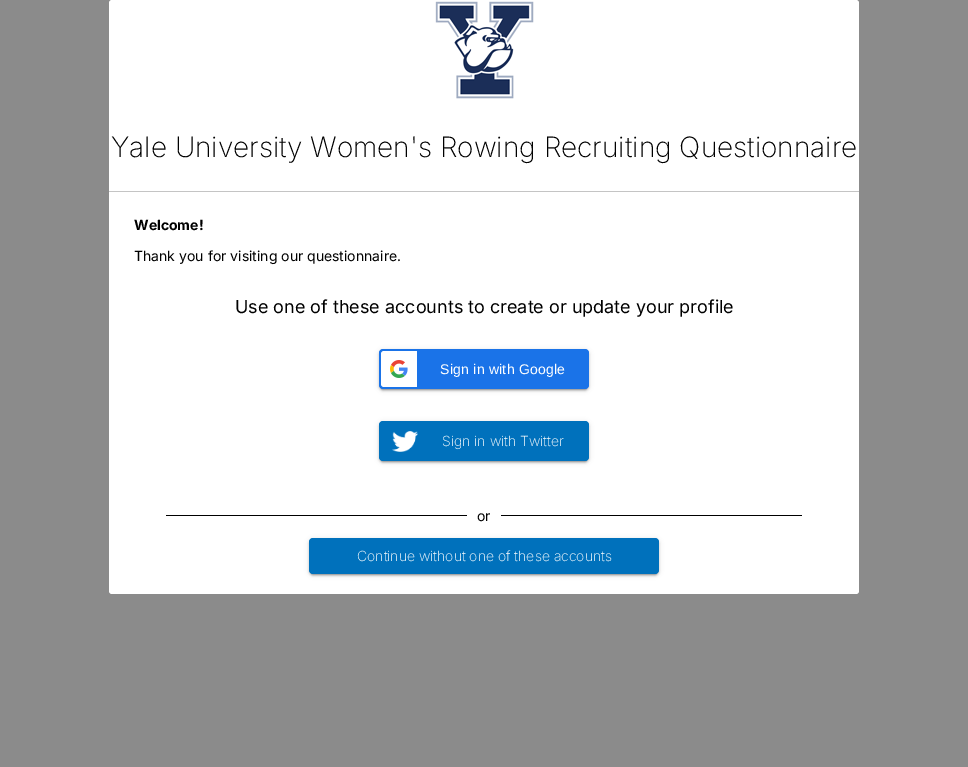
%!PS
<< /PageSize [968 767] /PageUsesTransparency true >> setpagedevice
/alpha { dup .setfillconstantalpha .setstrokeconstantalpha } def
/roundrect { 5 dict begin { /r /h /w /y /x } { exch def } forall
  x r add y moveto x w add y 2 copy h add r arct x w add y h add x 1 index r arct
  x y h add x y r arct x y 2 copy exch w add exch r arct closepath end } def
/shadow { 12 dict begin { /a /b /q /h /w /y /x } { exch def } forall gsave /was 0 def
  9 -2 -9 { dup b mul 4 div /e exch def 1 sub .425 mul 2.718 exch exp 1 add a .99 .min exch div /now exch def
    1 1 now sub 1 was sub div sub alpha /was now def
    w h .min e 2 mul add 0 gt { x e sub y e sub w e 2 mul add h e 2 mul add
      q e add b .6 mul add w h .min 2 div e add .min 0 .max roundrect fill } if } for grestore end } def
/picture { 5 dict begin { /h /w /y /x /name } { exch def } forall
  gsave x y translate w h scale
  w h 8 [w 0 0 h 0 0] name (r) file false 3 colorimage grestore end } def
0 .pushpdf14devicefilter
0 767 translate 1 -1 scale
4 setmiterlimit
0.545 setgray
0 0 968 767 rectfill
1 setgray
109 0 750 594 3 roundrect fill
0.769 setgray
109 191 750 1 rectfill
(img1.rgb) 435 1 99 98 picture
/Inter-ExtraLight [28 0 0 -28 0 0] selectfont
0 setgray
111 157 moveto (Yale University Women's Rowing Recruiting Questionnaire) show
/Inter-Bold [14 0 0 -14 0 0] selectfont
134 230 moveto (Welcome!) show
/Inter-Regular [14 0 0 -14 0 0] selectfont
134 261 moveto (Thank you for visiting our questionnaire.) show
/Inter-Regular [18 0 0 -18 0 0] selectfont
235 313 moveto (Use one of these accounts to create or update your profile) show
379 350 210 40 4 2.5 0.12 shadow
379 351 210 40 4 1 0.14 shadow
381 354 206 36 2 0.5 0.2 shadow
0.102 0.451 0.91 setrgbcolor
379 349 210 40 4 roundrect fill
1 setgray
newpath 384 351 moveto 417 351 lineto 417 387 lineto 384 387 lineto 382.5 387 381 385.5 381 384 curveto 381 354 lineto 381 352.5 382.5 351 384 351 curveto closepath fill
(img2.rgb) 390 360 18 18 picture
/LiberationSans-Regular [14 0 0 -14 0 0] selectfont
440 374 moveto 0.25 0 (Sign in with Google) ashow
0 setgray
379 422 210 40 4 2.5 0.12 shadow
379 423 210 40 4 1 0.14 shadow
381 426 206 36 2 0.5 0.2 shadow
0 0.443 0.737 setrgbcolor
379 421 210 40 4 roundrect fill
(img3.rgb) 392 431 26 21 picture
/Inter-ExtraLight [14 0 0 -14 0 0] selectfont
1 setgray
442 446 moveto (Sign in with Twitter) show
0 setgray
166 515 301 1 rectfill
/Inter-Regular [14 0 0 -14 0 0] selectfont
477 521 moveto (or) show
501 515 301 1 rectfill
309 539 350 36 4 2.5 0.12 shadow
309 540 350 36 4 1 0.14 shadow
311 543 346 32 2 0.5 0.2 shadow
0 0.443 0.737 setrgbcolor
309 538 350 36 4 roundrect fill
/Inter-ExtraLight [14 0 0 -14 0 0] selectfont
1 setgray
357 561 moveto (Continue without one of these accounts) show
.poppdf14devicefilter showpage
